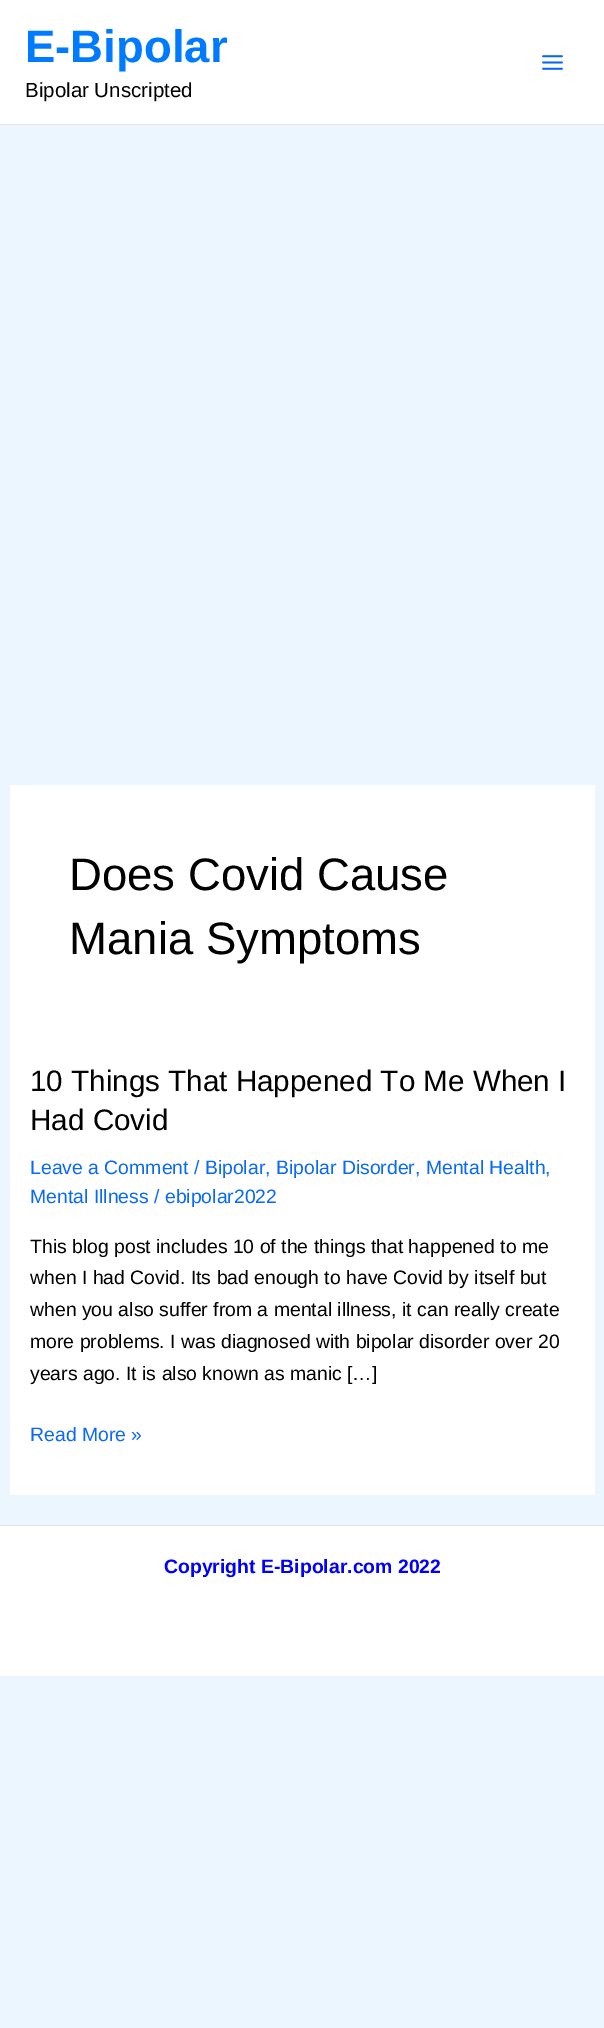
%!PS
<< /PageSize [604 2028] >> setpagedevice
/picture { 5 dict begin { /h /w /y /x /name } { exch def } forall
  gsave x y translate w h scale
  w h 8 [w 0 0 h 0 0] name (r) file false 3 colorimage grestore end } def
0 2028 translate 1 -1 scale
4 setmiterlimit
0.925 0.965 1 setrgbcolor
0 0 604 2028 rectfill
1 setgray
0 0 604 124 rectfill
0.898 setgray
0 124 604 1 rectfill
/LiberationSans-Bold [45.5 0 0 -45.5 0 0] selectfont
0 0.482 1 setrgbcolor
25 62 moveto (E-Bipolar) show
/LiberationSans-Regular [20.5 0 0 -20.5 0 0] selectfont
0 setgray
25 97 moveto (Bipolar Unscripted) show
(img1.rgb) 542 55 21 15 picture
1 setgray
10 785 585 710 rectfill
/LiberationSans-Regular [45.5 0 0 -45.5 0 0] selectfont
0 setgray
69 890 moveto (Does Covid Cause) show
69 954 moveto (Mania Symptoms) show
/LiberationSans-Regular [29.6 0 0 -29.6 0 0] selectfont
30 1091 moveto (10 Things That Happened To Me When I) show
30 1130 moveto (Had Covid) show
/LiberationSans-Regular [19.4 0 0 -19.4 0 0] selectfont
0.035 0.412 0.973 setrgbcolor
30 1174 moveto (Leave a Comment / Bipolar, Bipolar Disorder, Mental Health,) show
30 1203 moveto (Mental Illness / ebipolar2022) show
0 setgray
30 1253 moveto (This blog post includes 10 of the things that happened to me) show
30 1284 moveto (when I had Covid. Its bad enough to have Covid by itself but) show
30 1316 moveto (when you also suffer from a mental illness, it can really create) show
30 1348 moveto (more problems. I was diagnosed with bipolar disorder over 20) show
30 1380 moveto (years ago. It is also known as manic […]) show
0.035 0.412 0.973 setrgbcolor
30 1441 moveto (Read More ») show
1 setgray
0 1526 604 150 rectfill
0.898 setgray
0 1525 604 1 rectfill
/LiberationSans-Bold [19.4 0 0 -19.4 0 0] selectfont
0 0 1 setrgbcolor
164 1573 moveto (Copyright E-Bipolar.com 2022) show
showpage
